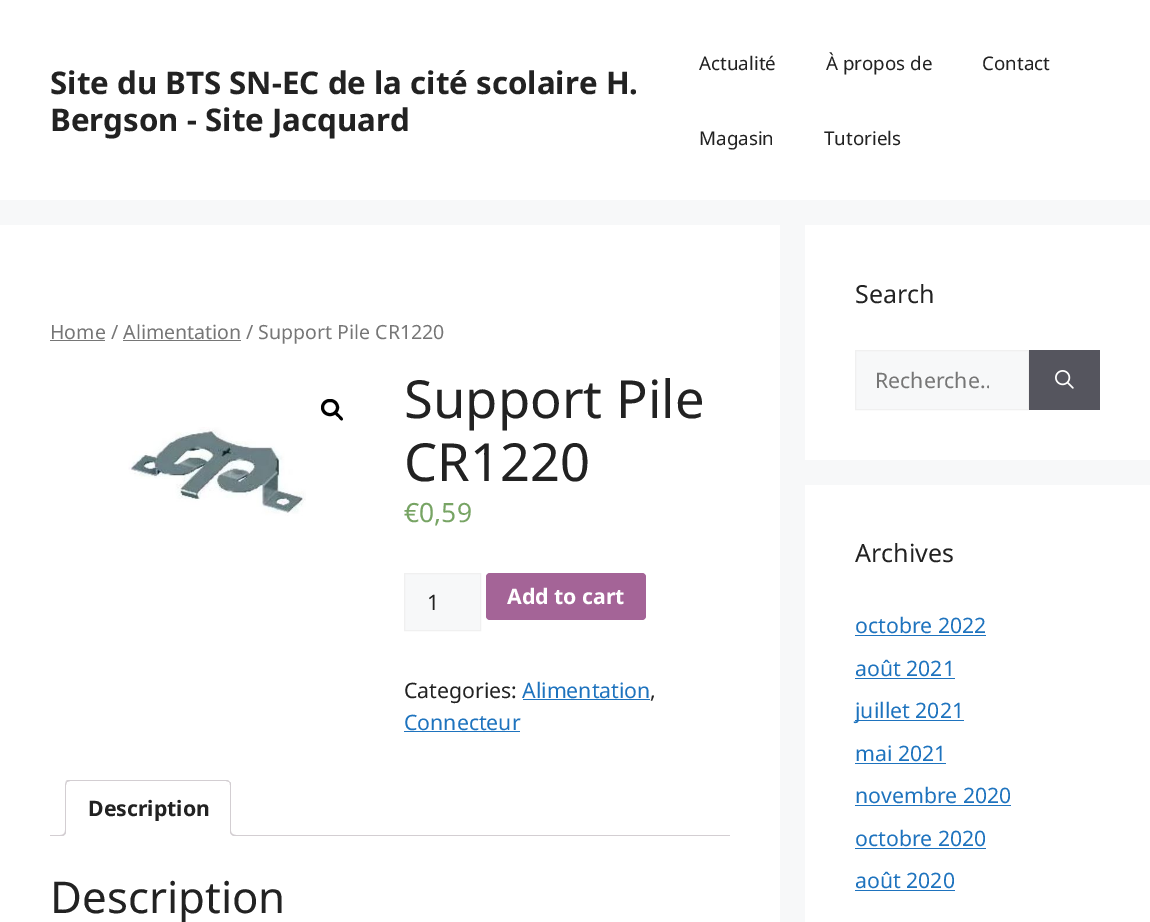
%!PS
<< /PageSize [1150 922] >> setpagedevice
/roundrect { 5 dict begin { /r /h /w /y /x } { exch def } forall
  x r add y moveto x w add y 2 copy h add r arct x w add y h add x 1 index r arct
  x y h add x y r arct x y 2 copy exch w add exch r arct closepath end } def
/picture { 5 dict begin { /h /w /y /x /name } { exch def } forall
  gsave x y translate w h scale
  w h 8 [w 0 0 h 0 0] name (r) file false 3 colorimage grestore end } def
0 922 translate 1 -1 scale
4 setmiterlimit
0.969 0.973 0.976 setrgbcolor
0 0 1150 922 rectfill
1 setgray
0 0 1150 200 rectfill
/NotoSans-Bold [31.25 0 0 -31.25 0 0] selectfont
0.133 setgray
50 94 moveto (Site du BTS SN-EC de la cité scolaire H.) show
50 131 moveto (Bergson - Site Jacquard) show
/NotoSans-Regular [18.75 0 0 -18.75 0 0] selectfont
699 70 moveto (Actualité) show
826 70 moveto (À propos de) show
982 70 moveto (Contact) show
699 145 moveto (Magasin) show
824 145 moveto (Tutoriels) show
1 setgray
0 225 780 697 rectfill
0.463 setgray
50 340 55 1 rectfill
/NotoSans-Regular [19.55 0 0 -19.55 0 0] selectfont
50 339 moveto (Home / Alimentation / Support Pile CR1220) show
123 340 118 1 rectfill
0 setgray
3 setlinewidth
322.5 400.5 15 14 7 roundrect stroke
newpath 335.5 413 moveto 337 411.5 339 414.5 340 415.5 curveto 340.5 416 344 418.5 342.5 420 curveto 341 421.5 339 418 338 417 curveto 337 416.5 334 414 335.5 413 curveto closepath fill
(img1.rgb) 128 427 178 89 picture
/NotoSans-Regular [52.5 0 0 -52.5 0 0] selectfont
0.133 setgray
404 418 moveto (Support Pile) show
404 481 moveto (CR1220) show
/NotoSans-Regular [26.5 0 0 -26.5 0 0] selectfont
0.467 0.643 0.392 setrgbcolor
404 522 moveto (€0,59) show
0.969 0.973 0.976 setrgbcolor
newpath 404.5 573.5 moveto 480.5 573.5 lineto 480.5 630.5 lineto 404.5 630.5 lineto closepath gsave fill grestore
0.941 setgray
1 setlinewidth
stroke
/NotoSans-Regular [21.25 0 0 -21.25 0 0] selectfont
0.133 setgray
427 610 moveto (1) show
0.643 0.392 0.592 setrgbcolor
486 573 160 47 4 roundrect fill
/NotoSans-Bold [21.25 0 0 -21.25 0 0] selectfont
1 setgray
507 604 moveto (Add to cart) show
/NotoSans-Regular [21.25 0 0 -21.25 0 0] selectfont
0.133 setgray
404 698 moveto (Categories:) show
0.118 0.451 0.745 setrgbcolor
522 698 moveto (Alimentation) show
0.133 setgray
650 698 moveto (,) show
0.118 0.451 0.745 setrgbcolor
523 699 127 1 rectfill
404 730 moveto (Connecteur) show
404 731 116 1 rectfill
0.827 0.808 0.824 setrgbcolor
50 835 680 1 rectfill
1 setgray
newpath 70 780 moveto 226 780 lineto 229 780 231 782 231 785 curveto 231 836 lineto 65 836 lineto 65 785 lineto 65 782 67 780 70 780 curveto closepath fill
0.827 0.808 0.824 setrgbcolor
newpath 70 780 moveto 68 780 67 780 66 781 curveto 67 782 lineto 70 781 lineto 226 781 lineto 229 782 lineto 230 782 lineto 229 781 228 780 226 780 curveto closepath fill
newpath 230 782 moveto 231 782 231 784 231 785 curveto 231 836 lineto 230 835 lineto 230 785 lineto 230 784 230 783 229 782 curveto closepath fill
1 setgray
newpath 231 836 moveto 230 835 lineto 66 835 lineto 65 836 lineto closepath fill
0.827 0.808 0.824 setrgbcolor
newpath 65 785 moveto 65 836 lineto 66 835 lineto 66 785 lineto 67 782 lineto 66 781 lineto 66 782 65 784 65 785 curveto closepath fill
/NotoSans-Bold [21.25 0 0 -21.25 0 0] selectfont
0.133 setgray
88 816 moveto (Description) show
gsave
50 780 680 56 rectclip
1 setgray
newpath 63 836 moveto 63 839 lineto 67 839 69 837 69 833 curveto 66 833 lineto 65.5 834.5 64.5 835.5 63 836 curveto closepath fill
grestore
0.827 0.808 0.824 setrgbcolor
newpath 60 830 moveto 66 830 lineto 66 834.5 64.5 836 60 836 curveto closepath 60 830 moveto 65 830 lineto 65 833.5 63.5 835 60 835 curveto closepath eofill
gsave
50 780 680 56 rectclip
1 setgray
newpath 228 833 moveto 228 837 230 839 234 839 curveto 234 836 lineto 232.5 836 231 834.5 230.5 833 curveto closepath fill
grestore
newpath 230 830 moveto 236 830 lineto 236 836 lineto 233 836 230 835 230 831 curveto closepath 231 830 moveto 236 830 lineto 236 835 lineto 234 835 231 834 231 831 curveto closepath eofill
/NotoSans-Regular [43.75 0 0 -43.75 0 0] selectfont
0.133 setgray
50 913 moveto (Description) show
1 setgray
805 225 345 235 rectfill
/NotoSans-Regular [25 0 0 -25 0 0] selectfont
0.133 setgray
855 303 moveto (Search) show
0.969 0.973 0.976 setrgbcolor
newpath 855.5 350.5 moveto 1028.5 350.5 lineto 1028.5 409.5 lineto 855.5 409.5 lineto closepath gsave fill grestore
0.941 setgray
stroke
gsave
875 365 114 29 rectclip
/NotoSans-Regular [21.25 0 0 -21.25 0 0] selectfont
0.463 setgray
875 388 moveto (Recherche…) show
grestore
0.333 0.333 0.369 setrgbcolor
1029 350 71 60 rectfill
(img2.rgb) 1055 370 19 19 picture
1 setgray
805 485 345 437 rectfill
0.133 setgray
855 562 moveto (Archives) show
/NotoSans-Regular [21.25 0 0 -21.25 0 0] selectfont
0.118 0.451 0.745 setrgbcolor
855 633 moveto (octobre 2022) show
855 635 131 1 rectfill
855 676 moveto (août 2021) show
855 678 100 1 rectfill
855 720 109 1 rectfill
855 718 moveto (juillet 2021) show
855 761 moveto (mai 2021) show
855 763 91 1 rectfill
855 803 moveto (novembre 2020) show
855 805 156 1 rectfill
855 846 moveto (octobre 2020) show
855 848 131 1 rectfill
855 888 moveto (août 2020) show
855 890 100 1 rectfill
showpage
